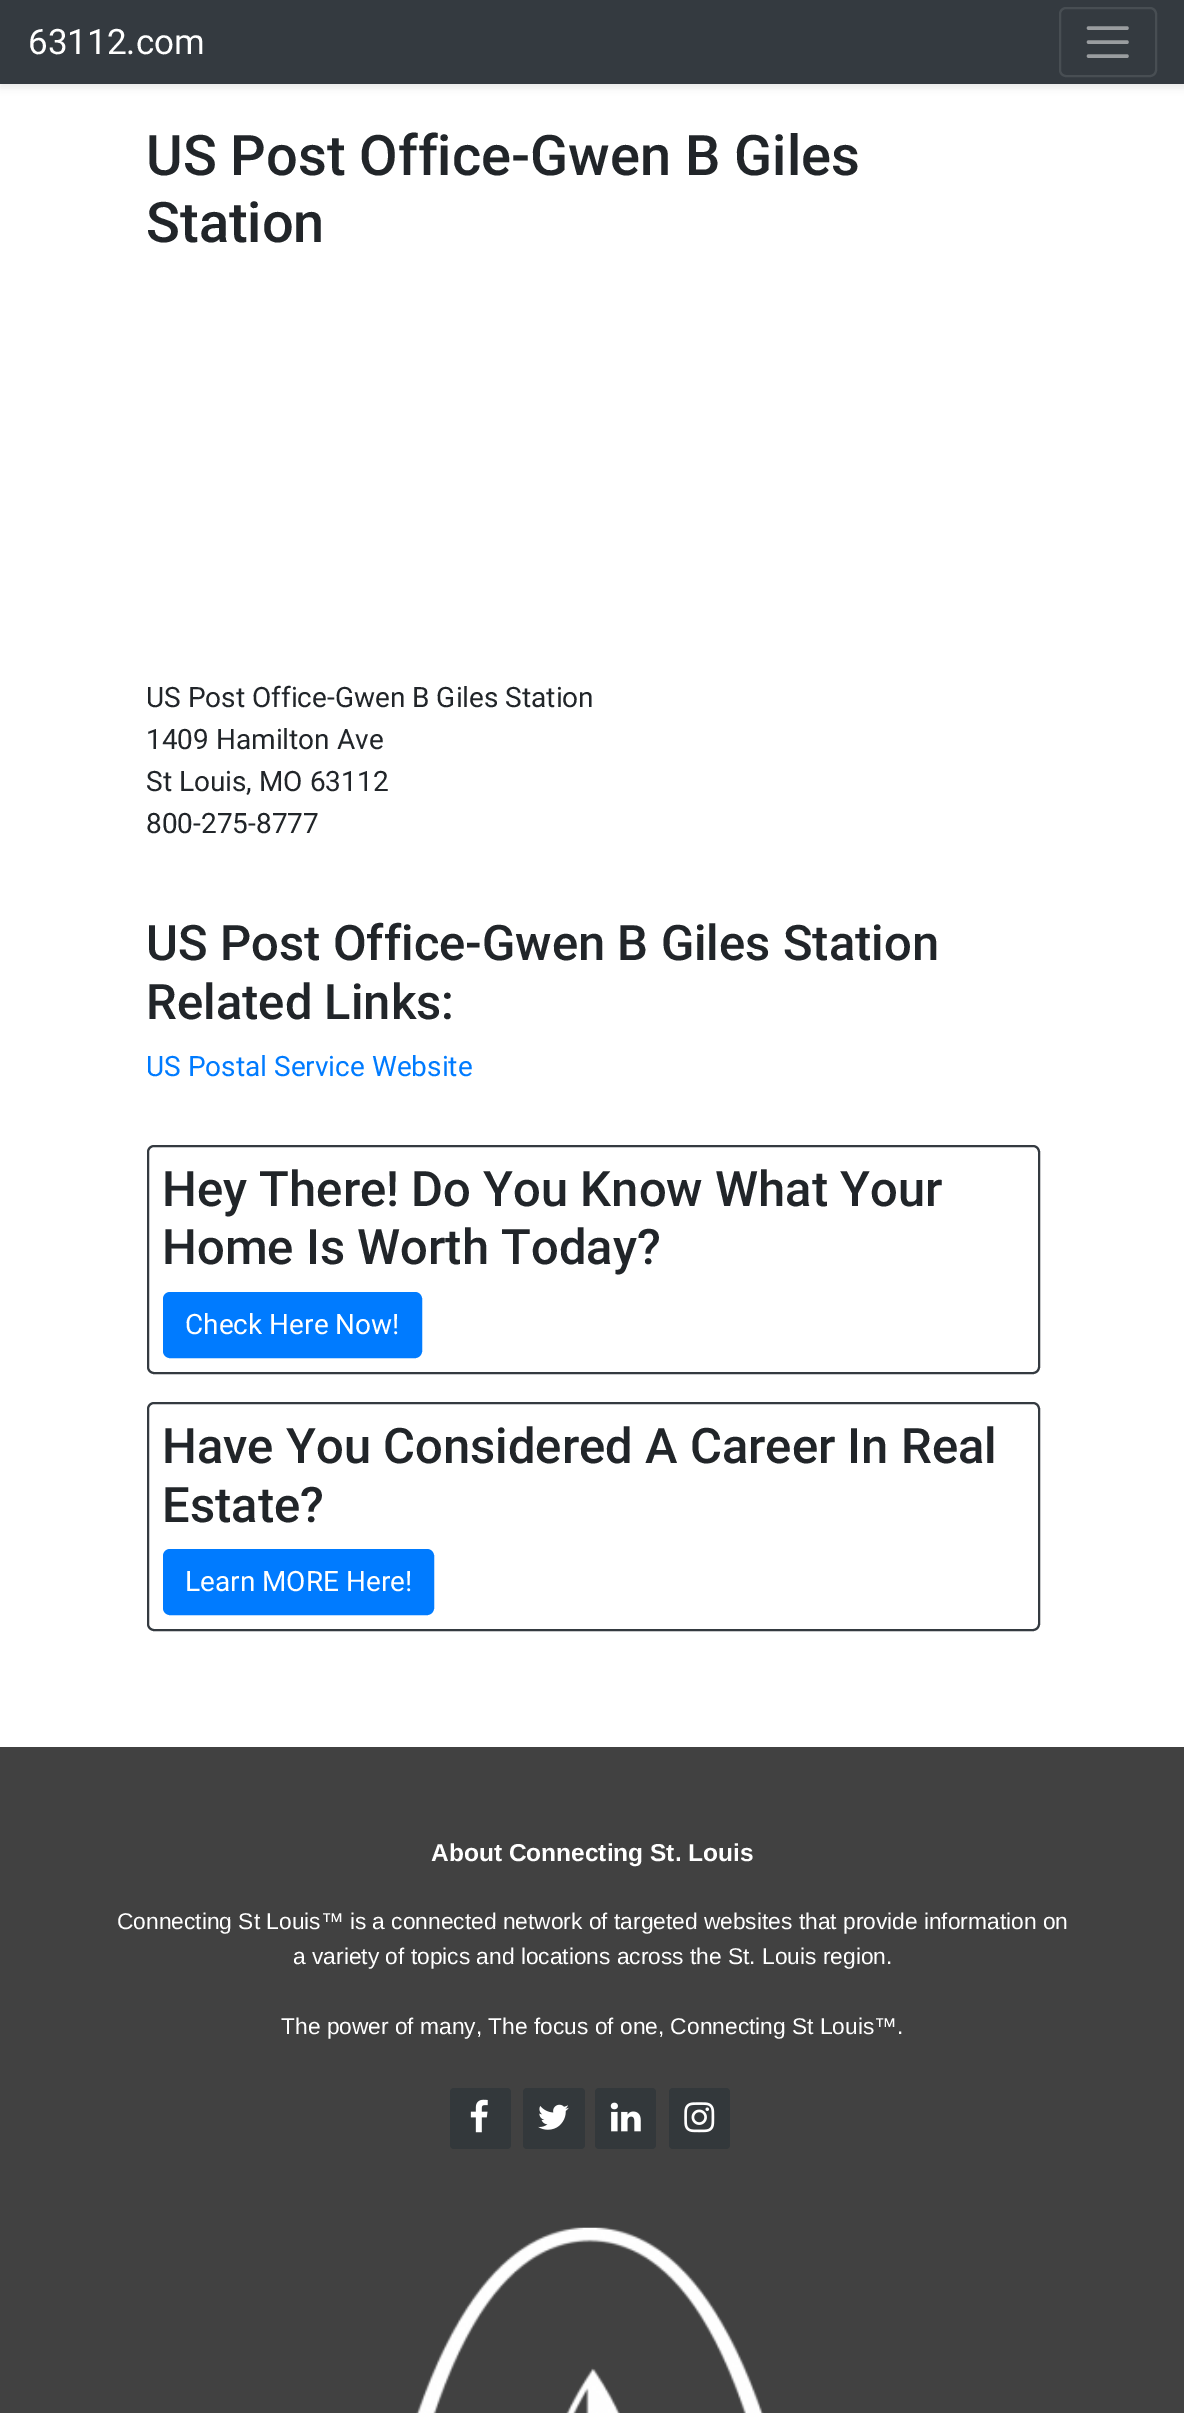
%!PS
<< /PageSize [1184 2413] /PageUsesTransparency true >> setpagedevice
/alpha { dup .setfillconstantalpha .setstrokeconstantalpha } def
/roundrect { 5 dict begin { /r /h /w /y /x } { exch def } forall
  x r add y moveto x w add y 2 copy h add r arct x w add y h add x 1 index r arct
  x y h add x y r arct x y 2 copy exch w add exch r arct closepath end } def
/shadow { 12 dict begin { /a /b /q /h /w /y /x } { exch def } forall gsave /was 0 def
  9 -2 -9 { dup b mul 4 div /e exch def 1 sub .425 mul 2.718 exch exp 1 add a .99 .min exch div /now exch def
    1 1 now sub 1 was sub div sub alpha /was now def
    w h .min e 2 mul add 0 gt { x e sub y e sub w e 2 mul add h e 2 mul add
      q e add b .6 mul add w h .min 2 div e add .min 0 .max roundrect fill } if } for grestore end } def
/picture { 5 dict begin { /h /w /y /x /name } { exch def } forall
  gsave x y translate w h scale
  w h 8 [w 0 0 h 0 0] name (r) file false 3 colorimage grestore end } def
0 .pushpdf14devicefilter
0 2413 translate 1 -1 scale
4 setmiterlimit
1 setgray
0 0 1184 2413 rectfill
0 setgray
0 4 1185 84 0 3.5 0.07 shadow
0.204 0.227 0.251 setrgbcolor
0 0 1184 84 rectfill
/Roboto-Regular [35 0 0 -35 0 0] selectfont
1 setgray
28 54 moveto (63112.com) show
0.282 0.306 0.325 setrgbcolor
2 setlinewidth
1060 8 96 68 6 roundrect stroke
0.604 0.616 0.627 setrgbcolor
3.5 setlinewidth
1 setlinecap
newpath 1088.5 28 moveto 1127 28 lineto 1088.5 42 moveto 1127 42 lineto 1088.5 56 moveto 1127 56 lineto stroke
/Roboto-Medium [56 0 0 -56 0 0] selectfont
0.129 0.145 0.161 setrgbcolor
146 175 moveto (US Post Office-Gwen B Giles) show
146 242 moveto (Station) show
/Roboto-Regular [28 0 0 -28 0 0] selectfont
146 707 moveto (US Post Office-Gwen B Giles Station) show
146 749 moveto (1409 Hamilton Ave) show
146 791 moveto (St Louis, MO 63112) show
146 833 moveto (800-275-8777) show
/Roboto-Medium [49 0 0 -49 0 0] selectfont
146 960 moveto (US Post Office-Gwen B Giles Station) show
146 1019 moveto (Related Links:) show
/Roboto-Regular [28 0 0 -28 0 0] selectfont
0 0.482 1 setrgbcolor
146 1076 moveto (US Postal Service Website) show
0.204 0.227 0.251 setrgbcolor
2 setlinewidth
0 setlinecap
148 1146 891 227 6 roundrect stroke
/Roboto-Medium [49 0 0 -49 0 0] selectfont
0.129 0.145 0.161 setrgbcolor
162 1206 moveto (Hey There! Do You Know What Your) show
162 1264 moveto (Home Is Worth Today?) show
0 0.482 1 setrgbcolor
164 1293 257 64 6 roundrect gsave fill grestore
stroke
/Roboto-Regular [28 0 0 -28 0 0] selectfont
1 setgray
185 1334 moveto (Check Here Now!) show
0.204 0.227 0.251 setrgbcolor
148 1403 891 227 6 roundrect stroke
/Roboto-Medium [49 0 0 -49 0 0] selectfont
0.129 0.145 0.161 setrgbcolor
162 1463 moveto (Have You Considered A Career In Real) show
162 1522 moveto (Estate?) show
0 0.482 1 setrgbcolor
164 1550 269 64 6 roundrect gsave fill grestore
stroke
/Roboto-Regular [28 0 0 -28 0 0] selectfont
1 setgray
185 1591 moveto (Learn MORE Here!) show
0.255 setgray
0 1747 1184 666 rectfill
/LiberationSans-Bold [24.5 0 0 -24.5 0 0] selectfont
1 setgray
431 1861 moveto (About Connecting St. Louis) show
/LiberationSans-Regular [22.75 0 0 -22.75 0 0] selectfont
117 1929 moveto (Connecting St Louis™ is a connected network of targeted websites that provide information on) show
293 1964 moveto (a variety of topics and locations across the St. Louis region.) show
281 2034 moveto (The power of many, The focus of one, Connecting St Louis™.) show
0.2 0.22 0.231 setrgbcolor
450 2088 61 61 4 roundrect fill
(img1.rgb) 470 2099 18 34 picture
523 2088 62 61 4 roundrect fill
(img2.rgb) 538 2104 31 26 picture
595 2088 61 61 4 roundrect fill
(img3.rgb) 610 2102 31 30 picture
669 2088 61 61 4 roundrect fill
(img4.rgb) 684 2102 31 31 picture
(img5.rgb) 416 2227 348 186 picture
.poppdf14devicefilter showpage
